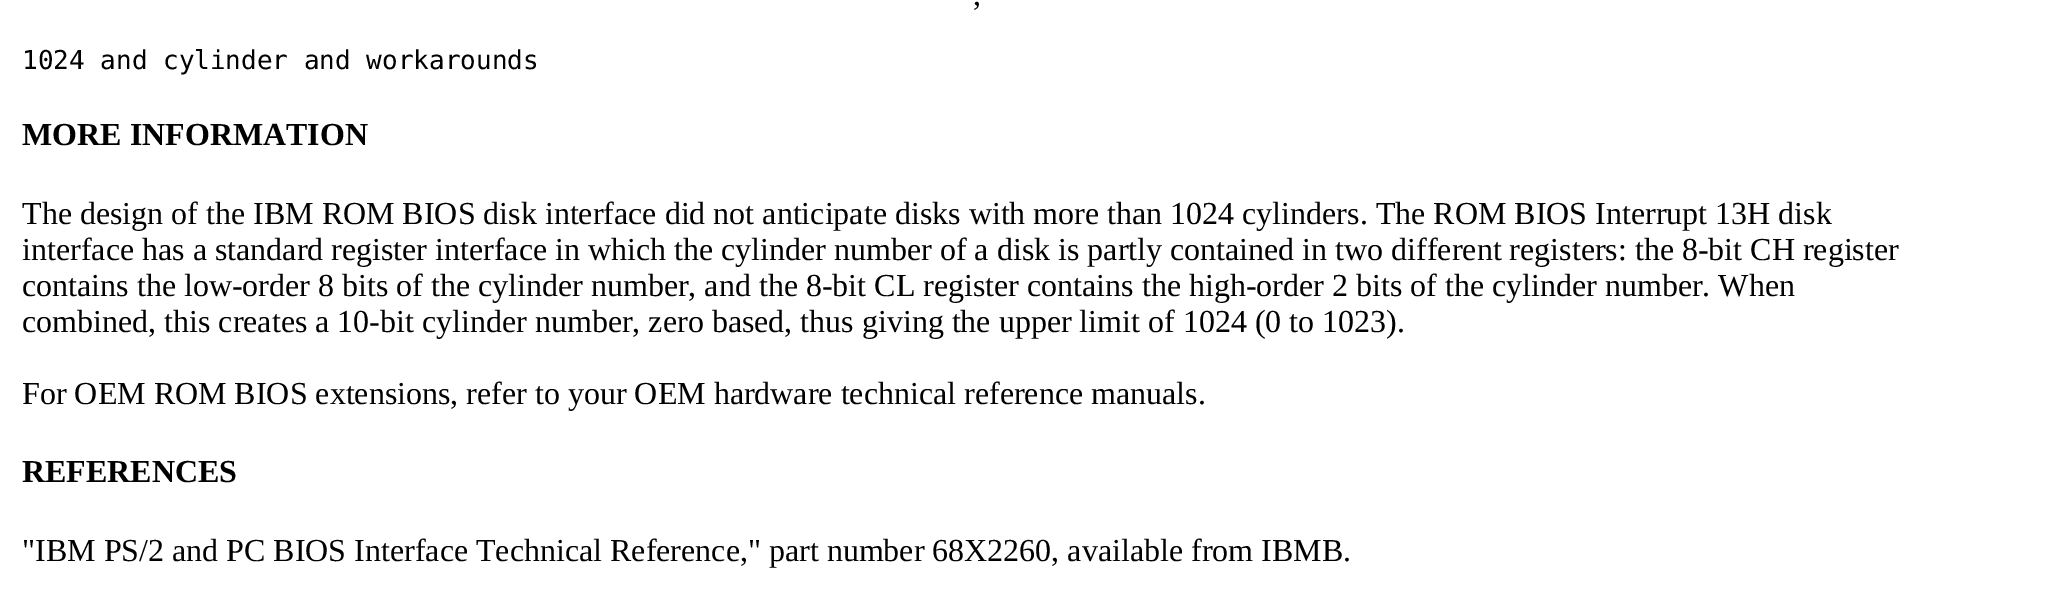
%!PS
<< /PageSize [2052 595] >> setpagedevice
0 595 translate 1 -1 scale
4 setmiterlimit
1 setgray
0 0 2052 595 rectfill
/LiberationSerif-Regular [32 0 0 -32 0 0] selectfont
0 setgray
973 5 moveto (,) show
/DejaVuSansMono-Regular [26 0 0 -26 0 0] selectfont
22 69 moveto (1024 and cylinder and workarounds) show
/LiberationSerif-Bold [32 0 0 -32 0 0] selectfont
22 145 moveto (MORE INFORMATION) show
/LiberationSerif-Regular [32 0 0 -32 0 0] selectfont
22 224 moveto (The design of the IBM ROM BIOS disk interface did not anticipate disks with more than 1024 cylinders. The ROM BIOS Interrupt 13H disk) show
22 260 moveto (interface has a standard register interface in which the cylinder number of a disk is partly contained in two different registers: the 8-bit CH register) show
22 296 moveto (contains the low-order 8 bits of the cylinder number, and the 8-bit CL register contains the high-order 2 bits of the cylinder number. When) show
22 332 moveto (combined, this creates a 10-bit cylinder number, zero based, thus giving the upper limit of 1024 \(0 to 1023\).) show
22 404 moveto (For OEM ROM BIOS extensions, refer to your OEM hardware technical reference manuals.) show
/LiberationSerif-Bold [32 0 0 -32 0 0] selectfont
22 482 moveto (REFERENCES) show
/LiberationSerif-Regular [32 0 0 -32 0 0] selectfont
22 561 moveto ("IBM PS/2 and PC BIOS Interface Technical Reference," part number 68X2260, available from IBMB.) show
showpage
